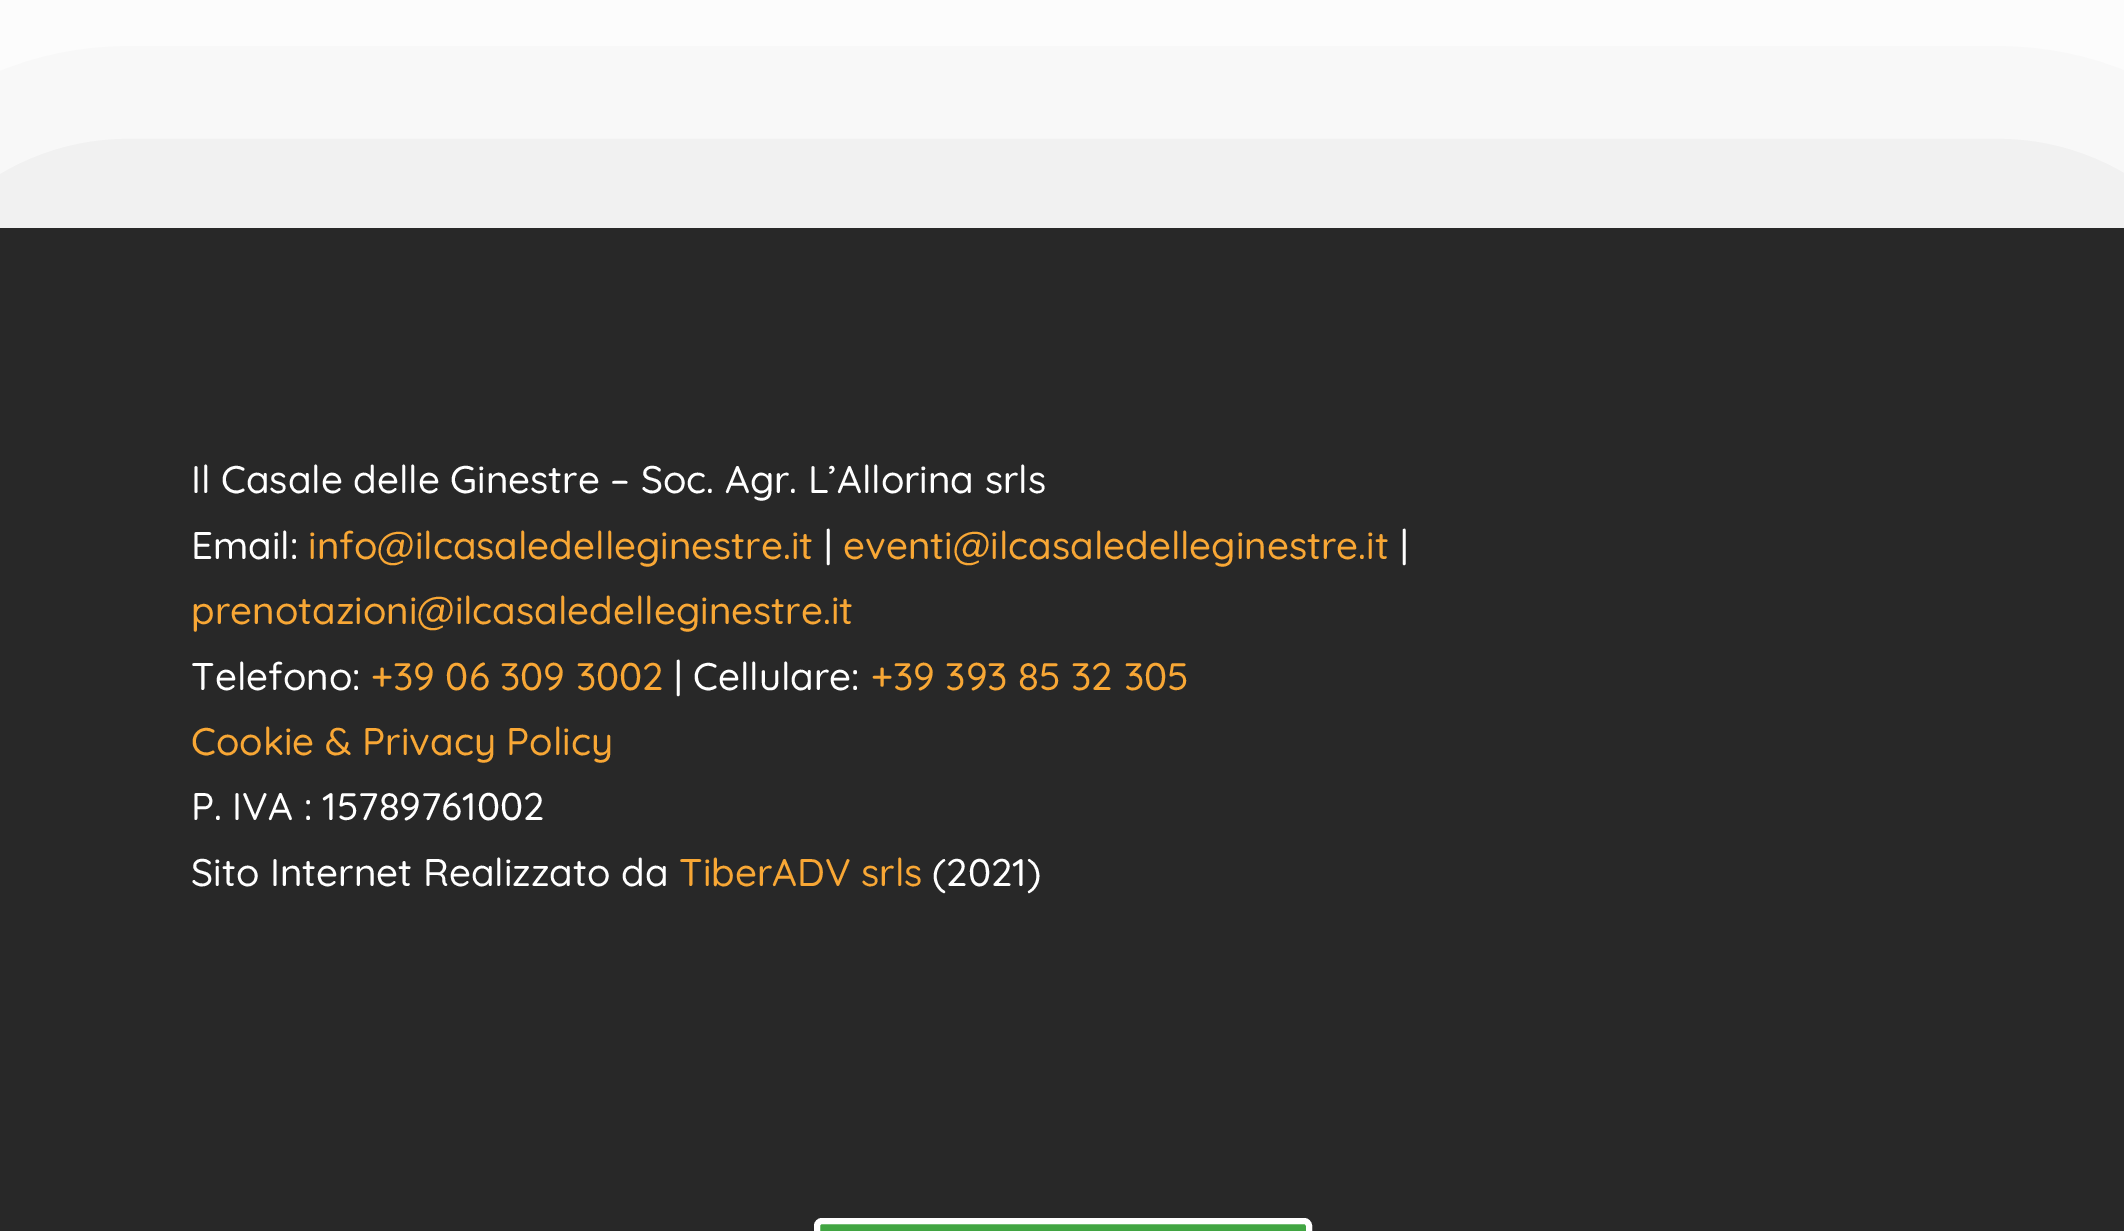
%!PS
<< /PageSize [2124 1231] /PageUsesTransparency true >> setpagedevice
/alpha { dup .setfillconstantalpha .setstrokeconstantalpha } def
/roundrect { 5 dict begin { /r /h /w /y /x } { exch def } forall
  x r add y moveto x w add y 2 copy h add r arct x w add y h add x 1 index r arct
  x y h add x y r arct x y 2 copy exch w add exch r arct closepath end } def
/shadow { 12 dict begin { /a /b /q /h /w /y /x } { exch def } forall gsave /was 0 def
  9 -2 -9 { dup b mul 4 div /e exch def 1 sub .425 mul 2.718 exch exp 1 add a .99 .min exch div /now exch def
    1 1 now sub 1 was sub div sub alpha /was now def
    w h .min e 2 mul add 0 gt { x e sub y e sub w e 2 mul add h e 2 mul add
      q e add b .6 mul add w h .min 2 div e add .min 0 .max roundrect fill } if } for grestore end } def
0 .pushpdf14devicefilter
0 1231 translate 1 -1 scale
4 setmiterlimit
1 setgray
0 0 2124 1231 rectfill
0 setgray
17 278 2092 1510 0 185.5 0.18 shadow
0.157 setgray
0 228 2124 1003 rectfill
/Quicksand-Light [38.5 0 0 -38.5 0 0] selectfont
1 setgray
191 493 moveto (Il Casale delle Ginestre – Soc. Agr. L’Allorina srls) show
191 559 moveto (Email:) show
0.973 0.655 0.208 setrgbcolor
308 559 moveto (info@ilcasaledelleginestre.it) show
1 setgray
824 559 moveto (|) show
0.973 0.655 0.208 setrgbcolor
843 559 moveto (eventi@ilcasaledelleginestre.it) show
1 setgray
1400 559 moveto (|) show
0.973 0.655 0.208 setrgbcolor
191 624 moveto (prenotazioni@ilcasaledelleginestre.it) show
1 setgray
191 690 moveto (Telefono:) show
0.973 0.655 0.208 setrgbcolor
371 690 moveto (+39 06 309 3002) show
1 setgray
674 690 moveto (| Cellulare:) show
0.973 0.655 0.208 setrgbcolor
871 690 moveto (+39 393 85 32 305) show
191 755 moveto (Cookie & Privacy Policy) show
1 setgray
191 820 moveto (P. IVA : 15789761002) show
191 886 moveto (Sito Internet Realizzato da) show
0.973 0.655 0.208 setrgbcolor
679 886 moveto (TiberADV srls) show
1 setgray
932 886 moveto (\(2021\)) show
0.255 0.647 0.259 setrgbcolor
817 1221 492 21 5 roundrect gsave fill grestore
1 setgray
6 setlinewidth
stroke
.poppdf14devicefilter showpage
